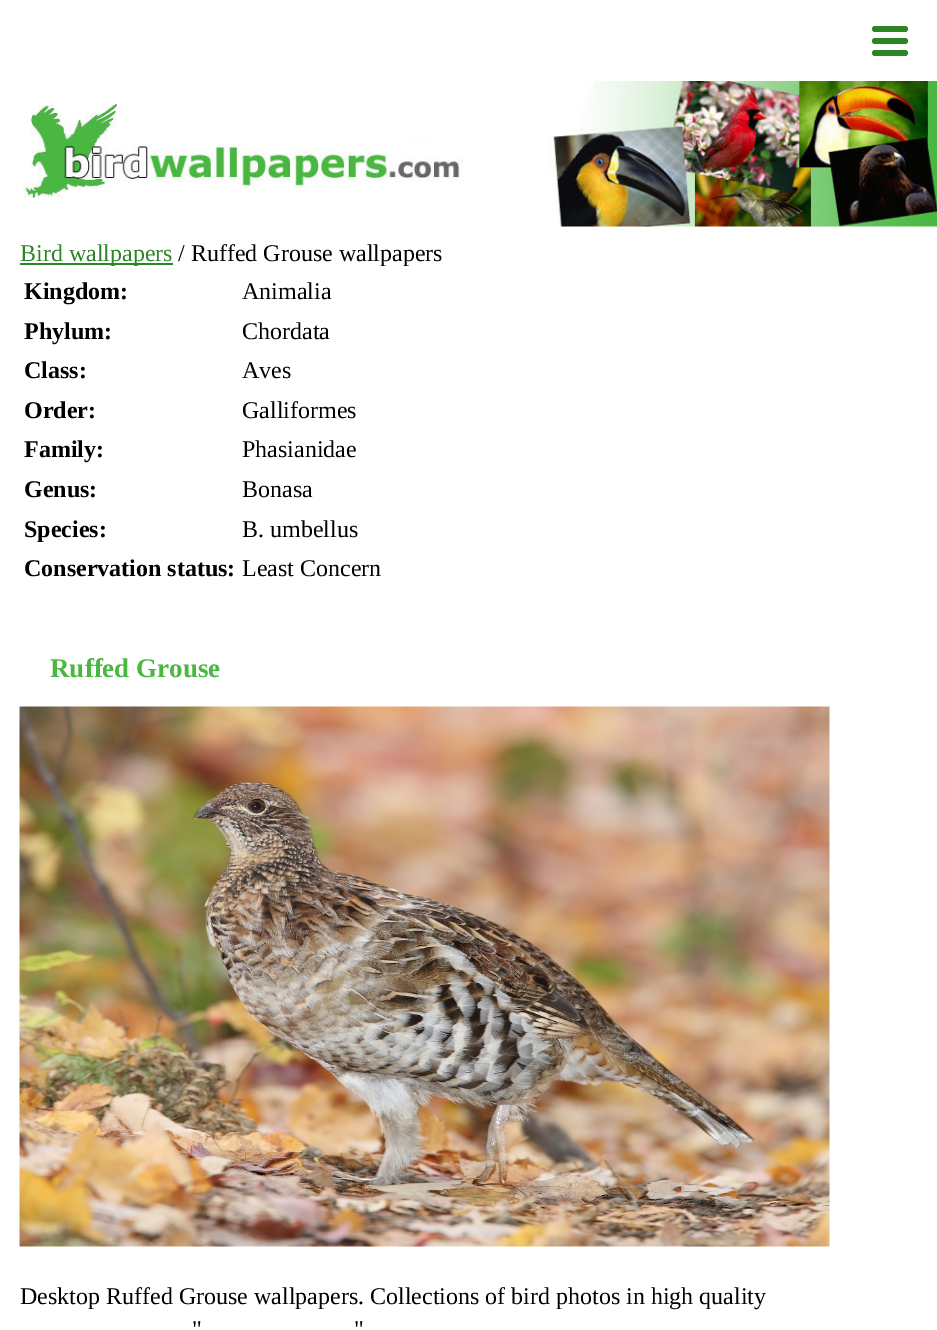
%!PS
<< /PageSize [937 1330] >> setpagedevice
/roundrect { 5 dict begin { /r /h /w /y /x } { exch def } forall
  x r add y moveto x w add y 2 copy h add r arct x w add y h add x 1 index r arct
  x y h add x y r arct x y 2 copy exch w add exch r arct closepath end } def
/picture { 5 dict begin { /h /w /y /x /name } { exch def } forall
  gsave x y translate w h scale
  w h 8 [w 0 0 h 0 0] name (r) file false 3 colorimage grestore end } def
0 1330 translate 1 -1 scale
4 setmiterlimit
1 setgray
0 0 937 1330 rectfill
0.169 0.522 0.145 setrgbcolor
872 26 36 6 3 roundrect fill
872 38 36 6 3 roundrect fill
872 50 36 6 3 roundrect fill
(img1.rgb) 23 81 914 146 picture
20 263 153 2 rectfill
/LiberationSerif-Regular [24 0 0 -24 0 0] selectfont
20 261 moveto (Bird wallpapers) show
0 setgray
178 261 moveto (/ Ruffed Grouse wallpapers) show
/LiberationSerif-Bold [24 0 0 -24 0 0] selectfont
24 299 moveto (Kingdom:) show
/LiberationSerif-Regular [24 0 0 -24 0 0] selectfont
242 299 moveto (Animalia) show
/LiberationSerif-Bold [24 0 0 -24 0 0] selectfont
24 339 moveto (Phylum:) show
/LiberationSerif-Regular [24 0 0 -24 0 0] selectfont
242 339 moveto (Chordata) show
/LiberationSerif-Bold [24 0 0 -24 0 0] selectfont
24 378 moveto (Class:) show
/LiberationSerif-Regular [24 0 0 -24 0 0] selectfont
242 378 moveto (Aves) show
/LiberationSerif-Bold [24 0 0 -24 0 0] selectfont
24 418 moveto (Order:) show
/LiberationSerif-Regular [24 0 0 -24 0 0] selectfont
242 418 moveto (Galliformes) show
/LiberationSerif-Bold [24 0 0 -24 0 0] selectfont
24 457 moveto (Family:) show
/LiberationSerif-Regular [24 0 0 -24 0 0] selectfont
242 457 moveto (Phasianidae) show
/LiberationSerif-Bold [24 0 0 -24 0 0] selectfont
24 497 moveto (Genus:) show
/LiberationSerif-Regular [24 0 0 -24 0 0] selectfont
242 497 moveto (Bonasa) show
/LiberationSerif-Bold [24 0 0 -24 0 0] selectfont
24 537 moveto (Species:) show
/LiberationSerif-Regular [24 0 0 -24 0 0] selectfont
242 537 moveto (B. umbellus) show
/LiberationSerif-Bold [24 0 0 -24 0 0] selectfont
24 576 moveto (Conservation status:) show
/LiberationSerif-Regular [24 0 0 -24 0 0] selectfont
242 576 moveto (Least Concern) show
/LiberationSerif-Bold [27 0 0 -27 0 0] selectfont
0.29 0.718 0.259 setrgbcolor
50 677 moveto (Ruffed Grouse) show
(img2.rgb) 19 706 811 541 picture
/LiberationSerif-Regular [24 0 0 -24 0 0] selectfont
0 setgray
20 1304 moveto (Desktop Ruffed Grouse wallpapers. Collections of bird photos in high quality) show
192 1337 moveto (") show
354 1337 moveto (") show
showpage
